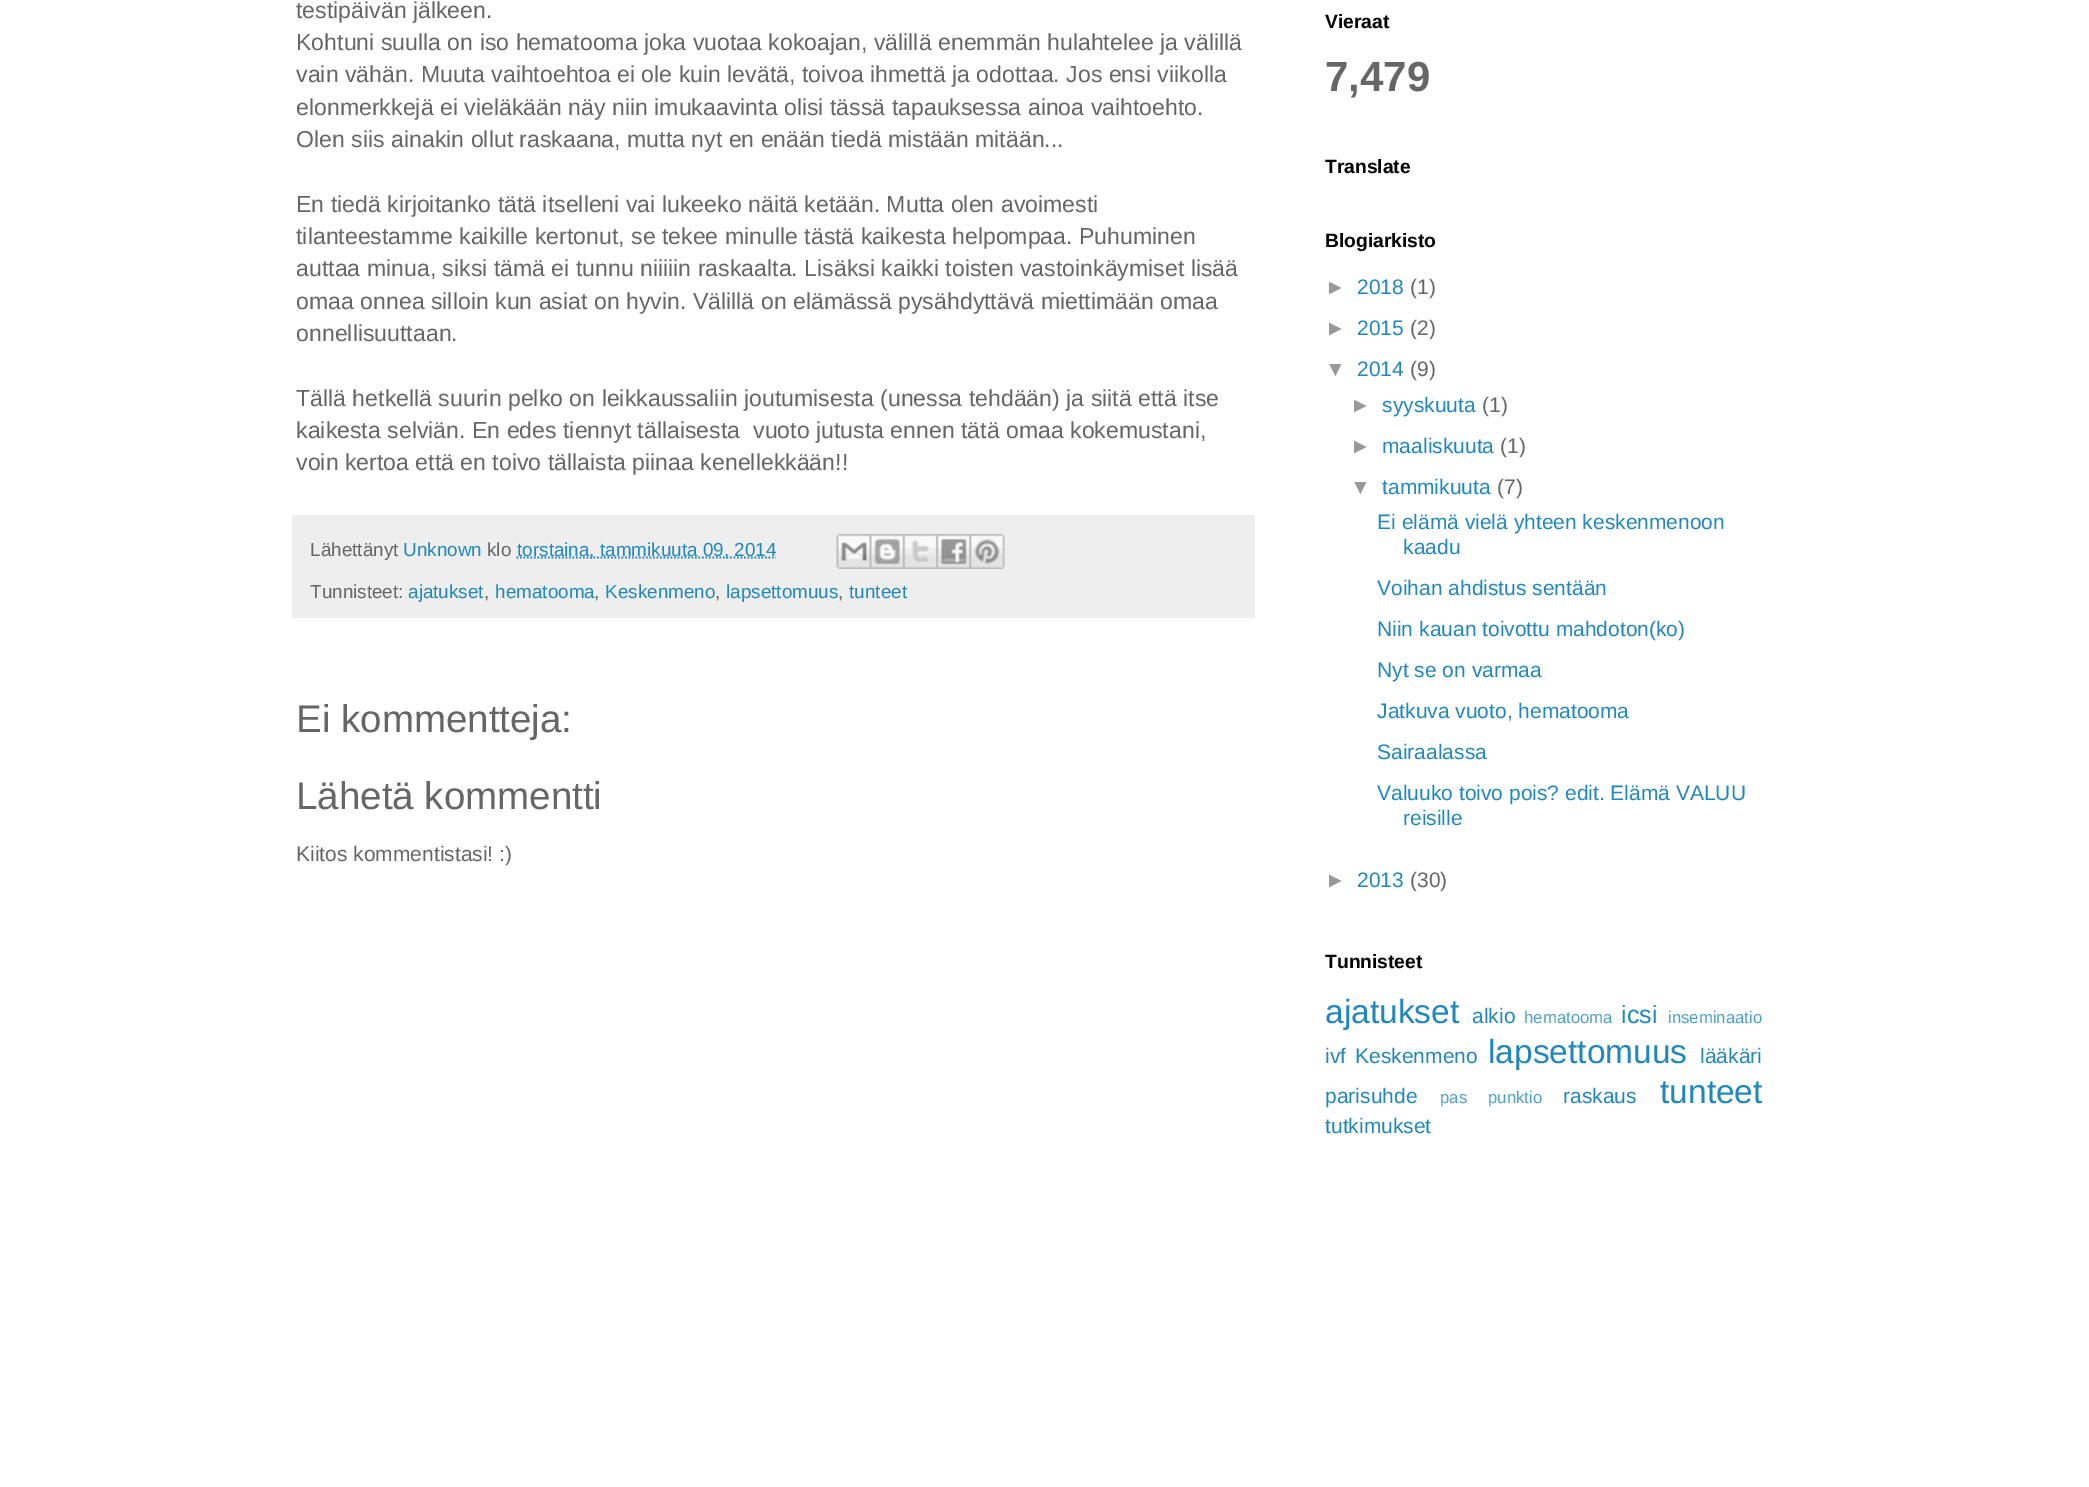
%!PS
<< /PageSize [2089 1487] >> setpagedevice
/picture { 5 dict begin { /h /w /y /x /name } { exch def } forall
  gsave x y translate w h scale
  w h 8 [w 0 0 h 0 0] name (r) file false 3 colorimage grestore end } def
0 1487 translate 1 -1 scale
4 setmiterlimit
1 setgray
0 0 2089 1487 rectfill
/LiberationSans-Regular [23.1 0 0 -23.1 0 0] selectfont
0.4 setgray
296 18 moveto (testipäivän jälkeen.) show
296 50 moveto (Kohtuni suulla on iso hematooma joka vuotaa kokoajan, välillä enemmän hulahtelee ja välillä) show
296 82 moveto (vain vähän. Muuta vaihtoehtoa ei ole kuin levätä, toivoa ihmettä ja odottaa. Jos ensi viikolla) show
296 115 moveto (elonmerkkejä ei vieläkään näy niin imukaavinta olisi tässä tapauksessa ainoa vaihtoehto.) show
296 147 moveto (Olen siis ainakin ollut raskaana, mutta nyt en enään tiedä mistään mitään...) show
296 212 moveto (En tiedä kirjoitanko tätä itselleni vai lukeeko näitä ketään. Mutta olen avoimesti) show
296 244 moveto (tilanteestamme kaikille kertonut, se tekee minulle tästä kaikesta helpompaa. Puhuminen) show
296 276 moveto (auttaa minua, siksi tämä ei tunnu niiiiin raskaalta. Lisäksi kaikki toisten vastoinkäymiset lisää) show
296 309 moveto (omaa onnea silloin kun asiat on hyvin. Välillä on elämässä pysähdyttävä miettimään omaa) show
296 341 moveto (onnellisuuttaan.) show
296 406 moveto (Tällä hetkellä suurin pelko on leikkaussaliin joutumisesta \(unessa tehdään\) ja siitä että itse) show
296 438 moveto (kaikesta selviän. En edes tiennyt tällaisesta  vuoto jutusta ennen tätä omaa kokemustani,) show
296 470 moveto (voin kertoa että en toivo tällaista piinaa kenellekkään!!) show
0.933 setgray
292 515 963 103 rectfill
/LiberationSans-Regular [18.9 0 0 -18.9 0 0] selectfont
0.4 setgray
310 556 moveto (Lähettänyt) show
0.133 0.533 0.733 setrgbcolor
403 556 moveto (Unknown) show
0.4 setgray
487 556 moveto (klo) show
0.133 0.533 0.733 setrgbcolor
1.8 setlinewidth
[1.75 1.75] 0 setdash
newpath 516.5 557.5 moveto 776 557.5 lineto stroke
517 556 moveto (torstaina, tammikuuta 09, 2014) show
(img1.rgb) 836 534 34 35 picture
(img2.rgb) 869 534 34 35 picture
(img3.rgb) 903 534 34 35 picture
(img4.rgb) 936 534 34 35 picture
(img5.rgb) 969 534 36 35 picture
0.4 setgray
310 598 moveto (Tunnisteet:) show
0.133 0.533 0.733 setrgbcolor
408 598 moveto (ajatukset) show
0.4 setgray
484 598 moveto (,) show
0.133 0.533 0.733 setrgbcolor
495 598 moveto (hematooma) show
0.4 setgray
594 598 moveto (,) show
0.133 0.533 0.733 setrgbcolor
605 598 moveto (Keskenmeno) show
0.4 setgray
715 598 moveto (,) show
0.133 0.533 0.733 setrgbcolor
726 598 moveto (lapsettomuus) show
0.4 setgray
838 598 moveto (,) show
0.133 0.533 0.733 setrgbcolor
849 598 moveto (tunteet) show
/LiberationSans-Regular [38.5 0 0 -38.5 0 0] selectfont
0.4 setgray
296 732 moveto (Ei kommentteja:) show
296 809 moveto (Lähetä kommentti) show
/LiberationSans-Regular [21 0 0 -21 0 0] selectfont
296 861 moveto (Kiitos kommentistasi! :\)) show
/LiberationSans-Bold [19.25 0 0 -19.25 0 0] selectfont
0 setgray
1325 28 moveto (Vieraat) show
/LiberationSans-Bold [42 0 0 -42 0 0] selectfont
0.4 setgray
1325 91 moveto (7,479) show
/LiberationSans-Bold [19.25 0 0 -19.25 0 0] selectfont
0 setgray
1325 173 moveto (Translate) show
1325 247 moveto (Blogiarkisto) show
/LiberationSans-Regular [21 0 0 -21 0 0] selectfont
0.6 setgray
1325 294 moveto (►) show
0.133 0.533 0.733 setrgbcolor
1357 294 moveto (2018) show
0.4 setgray
1410 294 moveto (\(1\)) show
0.6 setgray
1325 335 moveto (►) show
0.133 0.533 0.733 setrgbcolor
1357 335 moveto (2015) show
0.4 setgray
1410 335 moveto (\(2\)) show
0.6 setgray
1325 376 moveto (▼) show
0.133 0.533 0.733 setrgbcolor
1357 376 moveto (2014) show
0.4 setgray
1410 376 moveto (\(9\)) show
0.6 setgray
1350 412 moveto (►) show
0.133 0.533 0.733 setrgbcolor
1382 412 moveto (syyskuuta) show
0.4 setgray
1482 412 moveto (\(1\)) show
0.6 setgray
1350 453 moveto (►) show
0.133 0.533 0.733 setrgbcolor
1382 453 moveto (maaliskuuta) show
0.4 setgray
1500 453 moveto (\(1\)) show
0.6 setgray
1350 494 moveto (▼) show
0.133 0.533 0.733 setrgbcolor
1382 494 moveto (tammikuuta) show
0.4 setgray
1497 494 moveto (\(7\)) show
0.133 0.533 0.733 setrgbcolor
1377 529 moveto (Ei elämä vielä yhteen keskenmenoon) show
1403 554 moveto (kaadu) show
1377 595 moveto (Voihan ahdistus sentään) show
1377 636 moveto (Niin kauan toivottu mahdoton\(ko\)) show
1377 677 moveto (Nyt se on varmaa) show
1377 718 moveto (Jatkuva vuoto, hematooma) show
1377 759 moveto (Sairaalassa) show
1377 800 moveto (Valuuko toivo pois? edit. Elämä VALUU) show
1403 825 moveto (reisille) show
0.6 setgray
1325 887 moveto (►) show
0.133 0.533 0.733 setrgbcolor
1357 887 moveto (2013) show
0.4 setgray
1410 887 moveto (\(30\)) show
/LiberationSans-Bold [19.25 0 0 -19.25 0 0] selectfont
0 setgray
1325 968 moveto (Tunnisteet) show
/LiberationSans-Regular [33.5 0 0 -33.5 0 0] selectfont
0.133 0.533 0.733 setrgbcolor
1325 1023 moveto (ajatukset) show
/LiberationSans-Regular [21 0 0 -21 0 0] selectfont
1472 1023 moveto (alkio) show
/LiberationSans-Regular [16.75 0 0 -16.75 0 0] selectfont
0.306 0.627 0.788 setrgbcolor
1524 1023 moveto (hematooma) show
/LiberationSans-Regular [25 0 0 -25 0 0] selectfont
0.133 0.533 0.733 setrgbcolor
1621 1023 moveto (icsi) show
/LiberationSans-Regular [16.75 0 0 -16.75 0 0] selectfont
0.306 0.627 0.788 setrgbcolor
1668 1023 moveto (inseminaatio) show
/LiberationSans-Regular [21 0 0 -21 0 0] selectfont
0.133 0.533 0.733 setrgbcolor
1325 1063 moveto (ivf) show
1355 1063 moveto (Keskenmeno) show
/LiberationSans-Regular [33.5 0 0 -33.5 0 0] selectfont
1488 1063 moveto (lapsettomuus) show
/LiberationSans-Regular [21 0 0 -21 0 0] selectfont
1700 1063 moveto (lääkäri) show
1325 1103 moveto (parisuhde) show
/LiberationSans-Regular [16.75 0 0 -16.75 0 0] selectfont
0.306 0.627 0.788 setrgbcolor
1440 1103 moveto (pas) show
1488 1103 moveto (punktio) show
/LiberationSans-Regular [21 0 0 -21 0 0] selectfont
0.133 0.533 0.733 setrgbcolor
1563 1103 moveto (raskaus) show
/LiberationSans-Regular [33.5 0 0 -33.5 0 0] selectfont
1660 1103 moveto (tunteet) show
/LiberationSans-Regular [21 0 0 -21 0 0] selectfont
1325 1133 moveto (tutkimukset) show
showpage
